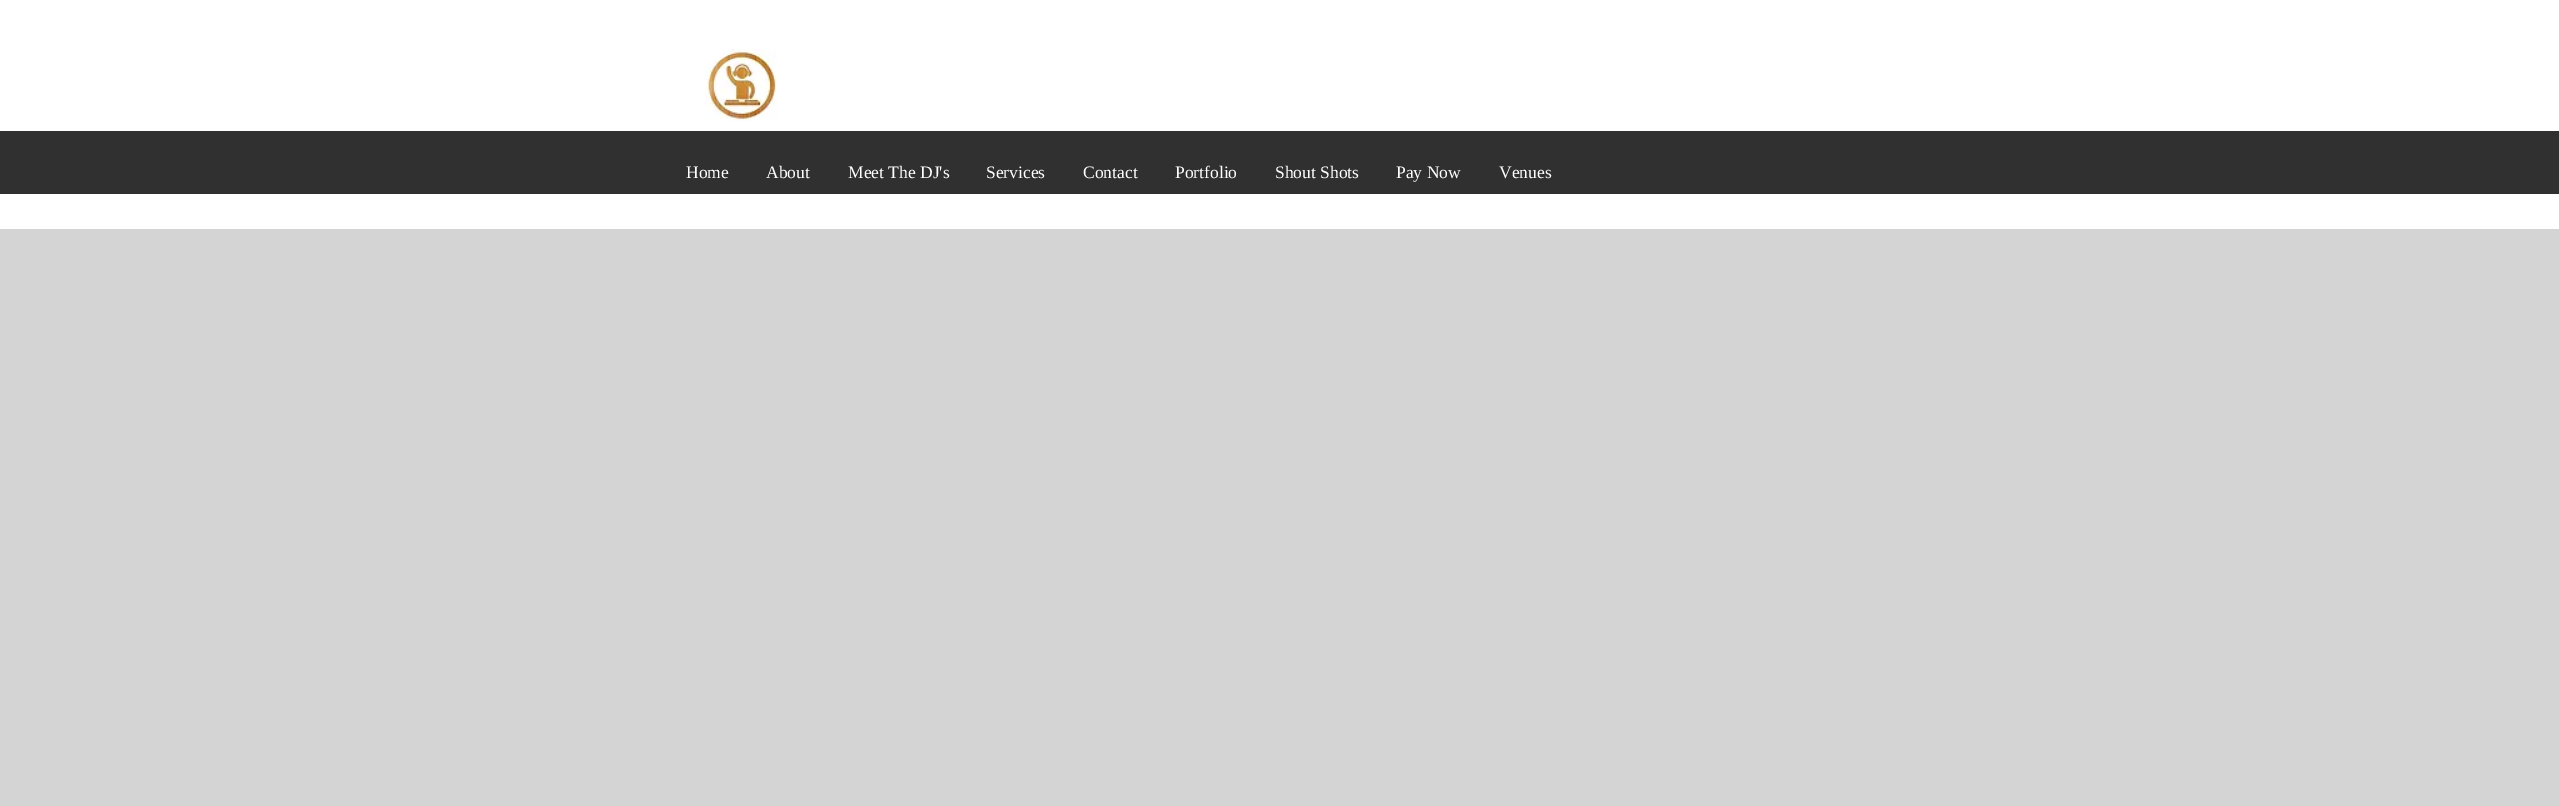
%!PS
<< /PageSize [2559 806] >> setpagedevice
/picture { 5 dict begin { /h /w /y /x /name } { exch def } forall
  gsave x y translate w h scale
  w h 8 [w 0 0 h 0 0] name (r) file false 3 colorimage grestore end } def
0 806 translate 1 -1 scale
4 setmiterlimit
1 setgray
0 0 2559 806 rectfill
0.188 setgray
0 131 2559 63 rectfill
(img1.rgb) 705 49 72 72 picture
/LiberationSerif-Regular [17.5 0 0 -17.5 0 0] selectfont
1 setgray
686 178 moveto (Home) show
766 178 moveto (About) show
848 178 moveto (Meet The DJ's) show
986 178 moveto (Services) show
1083 178 moveto (Contact) show
1175 178 moveto (Portfolio) show
1275 178 moveto (Shout Shots) show
1396 178 moveto (Pay Now) show
1499 178 moveto (Venues) show
0.831 setgray
0 229 2559 577 rectfill
showpage
